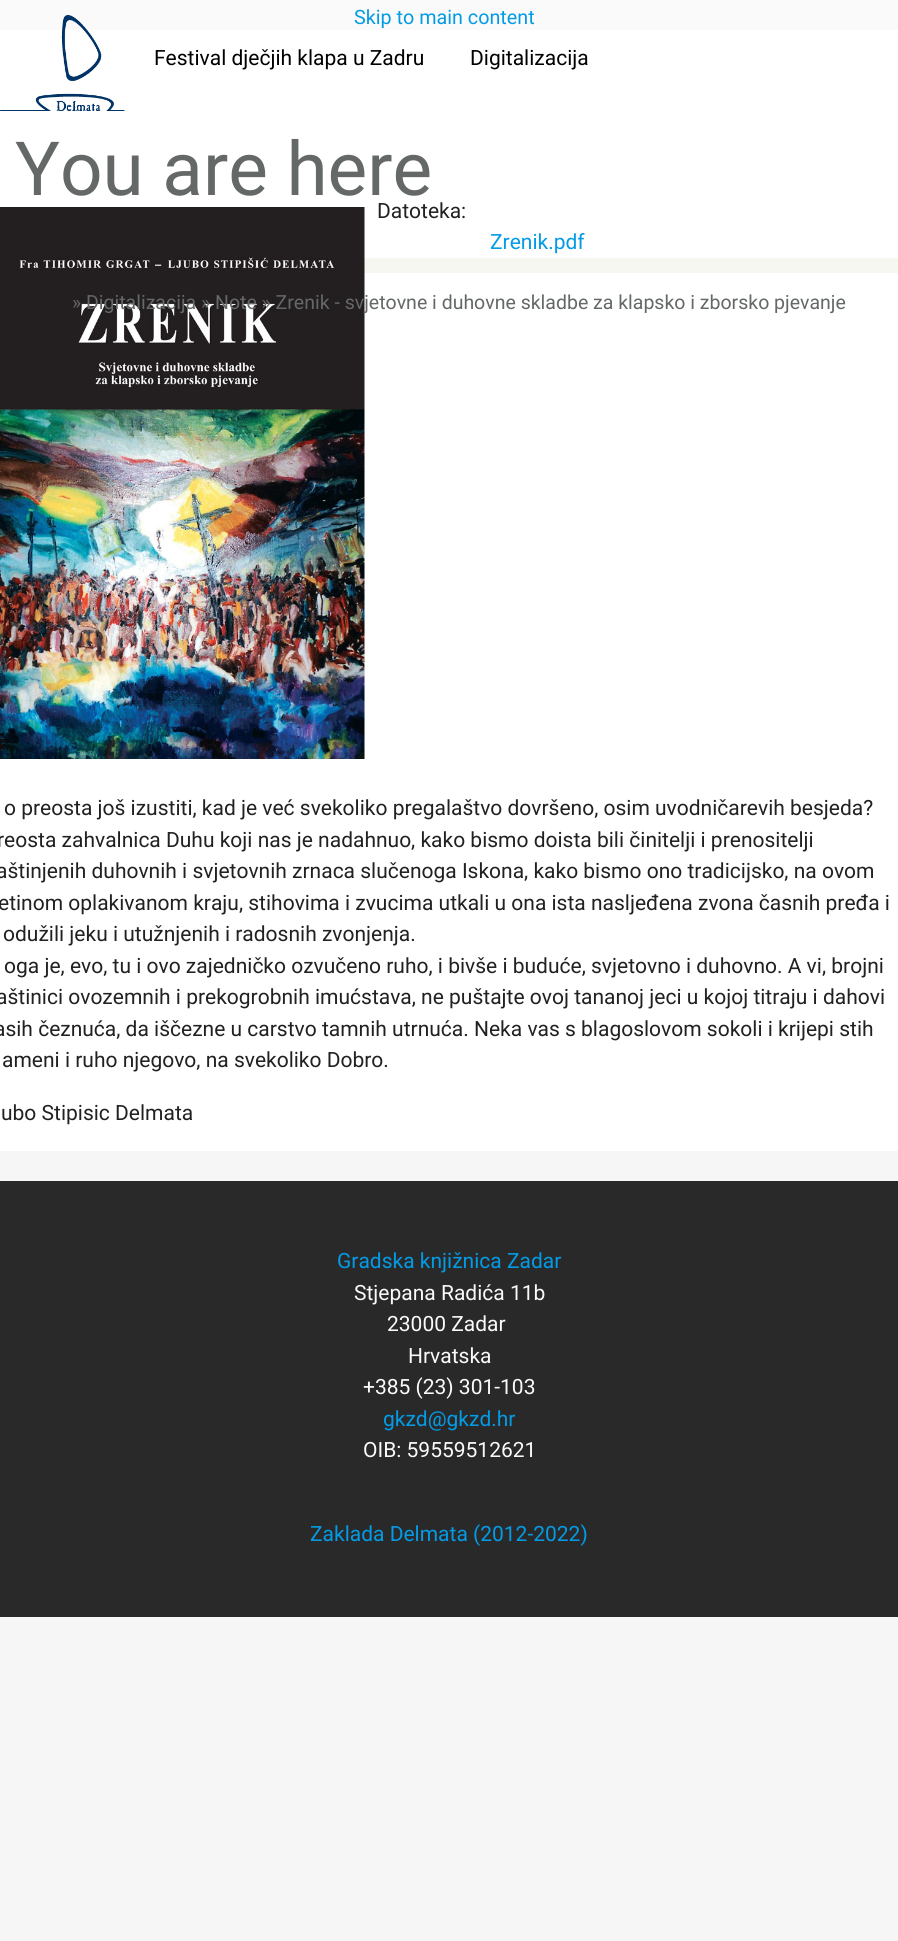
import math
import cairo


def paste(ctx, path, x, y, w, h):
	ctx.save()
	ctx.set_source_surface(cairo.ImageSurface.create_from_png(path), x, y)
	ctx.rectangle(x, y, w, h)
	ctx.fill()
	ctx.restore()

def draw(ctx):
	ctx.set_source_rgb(0.961, 0.961, 0.961)
	ctx.paint()
	ctx.set_source_rgb(0.98, 0.98, 0.98)
	ctx.rectangle(0, 0, 898, 30)
	ctx.fill()
	ctx.select_font_face('Roboto')
	ctx.set_font_size(19.75)
	ctx.set_source_rgb(0.012, 0.608, 0.898)
	ctx.move_to(354, 24)
	ctx.show_text('Skip to main content')
	ctx.set_source_rgb(1, 1, 1)
	ctx.rectangle(0, 30, 898, 1121)
	ctx.fill()
	paste(ctx, 'media/1.png', 0, 15, 125, 96)
	ctx.set_font_size(21)
	ctx.set_source_rgb(0, 0, 0)
	ctx.move_to(154, 65)
	ctx.show_text('Festival dječjih klapa u Zadru')
	ctx.move_to(470, 65)
	ctx.show_text('Digitalizacija')
	ctx.set_font_size(74.75)
	ctx.set_source_rgb(0.392, 0.408, 0.404)
	ctx.move_to(15, 195)
	ctx.show_text('You are here')
	ctx.set_source_rgb(0.965, 0.965, 0.949)
	ctx.rectangle(364, 258, 534, 15)
	ctx.fill()
	paste(ctx, 'media/2.png', 0, 207, 365, 552)
	ctx.set_font_size(19.5)
	ctx.set_source_rgb(0.392, 0.408, 0.404)
	ctx.move_to(72, 309)
	ctx.show_text('» Digitalizacija » Note » Zrenik - svjetovne i duhovne skladbe za klapsko i zborsko pjevanje')
	ctx.set_font_size(21)
	ctx.set_source_rgb(0.129, 0.129, 0.129)
	ctx.move_to(377, 218)
	ctx.show_text('Datoteka:')
	ctx.set_source_rgb(0.012, 0.608, 0.898)
	ctx.move_to(490, 249)
	ctx.show_text('Zrenik.pdf')
	ctx.set_source_rgb(0.129, 0.129, 0.129)
	for x, y, s in [
		(4, 815, 'o preosta još izustiti, kad je već svekoliko pregalaštvo dovršeno, osim uvodničarevih besjeda?'),
		(-3, 847, 'reosta zahvalnica Duhu koji nas je nadahnuo, kako bismo doista bili činitelji i prenositelji'),
		(-4, 878, 'aštinjenih duhovnih i svjetovnih zrnaca slučenoga Iskona, kako bismo ono tradicijsko, na ovom'),
		(-2, 910, 'etinom oplakivanom kraju, stihovima i zvucima utkali u ona ista nasljeđena zvona časnih pređa i'),
		(3, 941, 'odužili jeku i utužnjenih i radosnih zvonjenja.'),
		(4, 973, 'oga je, evo, tu i ovo zajedničko ozvučeno ruho, i bivše i buduće, svjetovno i duhovno. A vi, brojni'),
		(-4, 1004, 'aštinici ovozemnih i prekogrobnih imućstava, ne puštajte ovoj tananoj jeci u kojoj titraju i dahovi'),
		(-6, 1036, 'asih čeznuća, da iščezne u carstvo tamnih utrnuća. Neka vas s blagoslovom sokoli i krijepi stih'),
		(2, 1067, 'ameni i ruho njegovo, na svekoliko Dobro.'),
		(1, 1120, 'ubo Stipisic Delmata'),
	]:
		ctx.move_to(x, y)
		ctx.show_text(s)
	ctx.set_source_rgb(0.161, 0.161, 0.161)
	ctx.rectangle(0, 1181, 898, 436)
	ctx.fill()
	ctx.set_source_rgb(0.012, 0.608, 0.898)
	ctx.move_to(337, 1268)
	ctx.show_text('Gradska knjižnica Zadar')
	ctx.set_source_rgb(0.98, 0.98, 0.98)
	for x, y, s in [
		(354, 1300, 'Stjepana Radića 11b'),
		(387, 1331, '23000 Zadar'),
		(408, 1363, 'Hrvatska'),
		(363, 1394, '+385 (23) 301-103'),
	]:
		ctx.move_to(x, y)
		ctx.show_text(s)
	ctx.set_source_rgb(0.012, 0.608, 0.898)
	ctx.move_to(383, 1426)
	ctx.show_text('gkzd@gkzd.hr')
	ctx.set_source_rgb(0.98, 0.98, 0.98)
	ctx.move_to(363, 1457)
	ctx.show_text('OIB: 59559512621')
	ctx.set_source_rgb(0.012, 0.608, 0.898)
	ctx.move_to(310, 1541)
	ctx.show_text('Zaklada Delmata (2012-2022)')


surface = cairo.ImageSurface(cairo.FORMAT_RGB24, 898, 1941)
ctx = cairo.Context(surface)
options = cairo.FontOptions()
options.set_hint_metrics(cairo.HINT_METRICS_OFF)
options.set_hint_style(cairo.HINT_STYLE_NONE)
ctx.set_font_options(options)
ctx.set_miter_limit(4)
draw(ctx)
surface.write_to_png('image.png')
